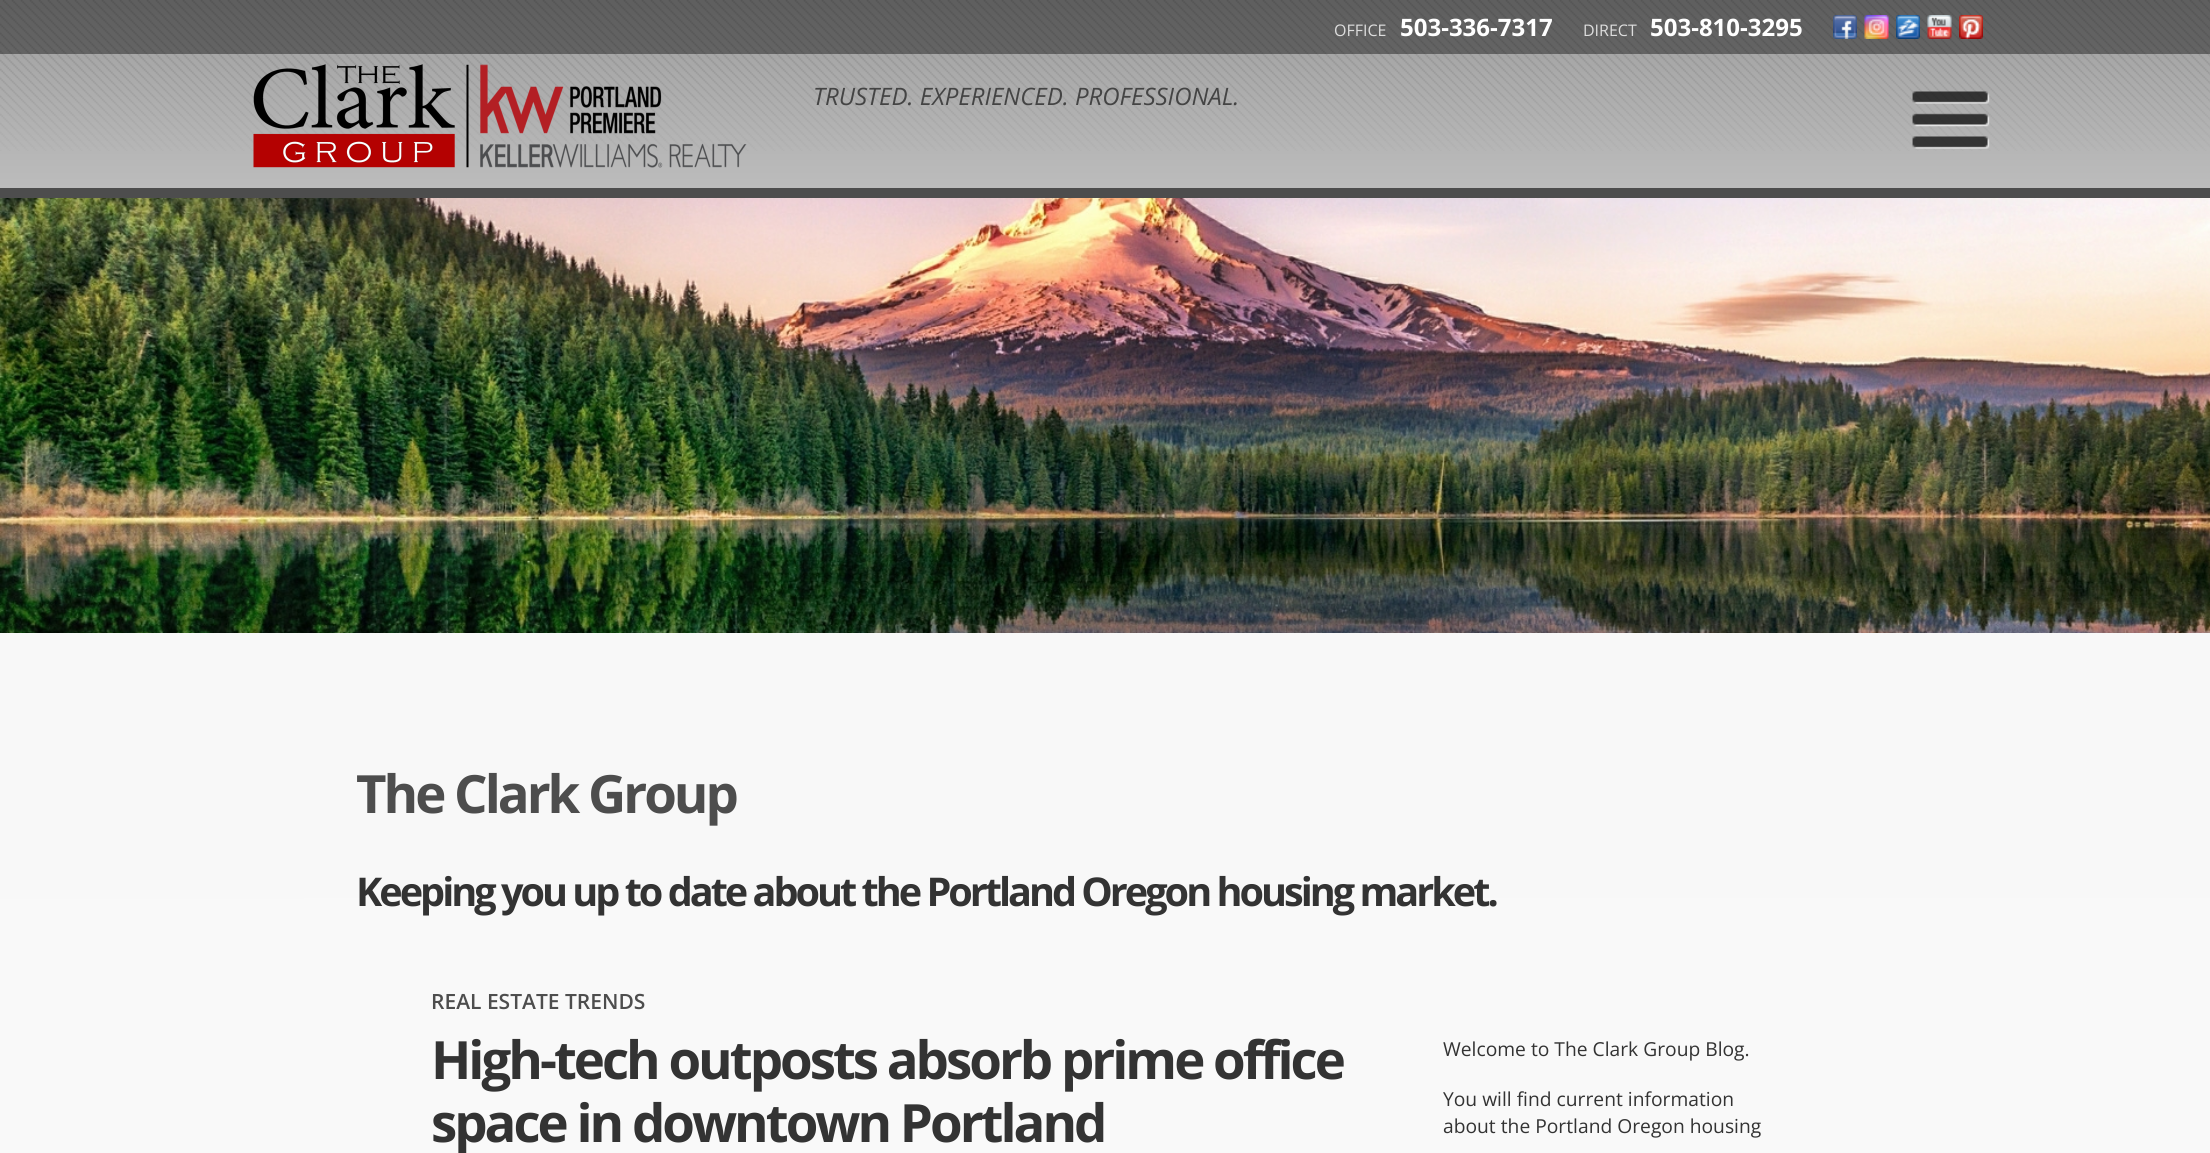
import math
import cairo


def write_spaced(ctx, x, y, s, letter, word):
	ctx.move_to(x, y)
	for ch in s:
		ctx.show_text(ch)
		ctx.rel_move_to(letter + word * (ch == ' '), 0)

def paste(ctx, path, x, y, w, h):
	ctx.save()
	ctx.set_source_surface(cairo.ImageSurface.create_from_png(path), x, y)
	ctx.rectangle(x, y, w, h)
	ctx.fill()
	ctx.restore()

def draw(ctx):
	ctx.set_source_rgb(1, 1, 1)
	ctx.paint()
	gradient = cairo.LinearGradient(1106, 0, 1106, 188)
	gradient.add_color_stop_rgba(0, 0.62, 0.62, 0.62, 1)
	gradient.add_color_stop_rgba(1, 0.737, 0.737, 0.737, 1)
	ctx.set_source(gradient)
	ctx.rectangle(0, 0, 2210, 188)
	ctx.fill()
	ctx.set_source_rgb(0.302, 0.302, 0.302)
	ctx.rectangle(0, 188, 2210, 10)
	ctx.fill()
	paste(ctx, 'media/1.png', 0, 0, 2210, 151)
	ctx.set_source_rgba(0, 0, 0, 0.4)
	ctx.rectangle(0, 0, 2210, 54)
	ctx.fill()
	ctx.select_font_face('Open Sans')
	ctx.set_font_size(16)
	ctx.set_source_rgb(0.867, 0.867, 0.867)
	ctx.move_to(1334, 36)
	ctx.show_text('OFFICE')
	ctx.select_font_face('Open Sans', cairo.FONT_SLANT_NORMAL, cairo.FONT_WEIGHT_BOLD)
	ctx.set_font_size(24)
	ctx.set_source_rgb(1, 1, 1)
	ctx.move_to(1400, 36)
	ctx.show_text('503-336-7317')
	ctx.select_font_face('Open Sans')
	ctx.set_font_size(16)
	ctx.set_source_rgb(0.867, 0.867, 0.867)
	ctx.move_to(1583, 36)
	ctx.show_text('DIRECT')
	ctx.select_font_face('Open Sans', cairo.FONT_SLANT_NORMAL, cairo.FONT_WEIGHT_BOLD)
	ctx.set_font_size(24)
	ctx.set_source_rgb(1, 1, 1)
	ctx.move_to(1650, 36)
	ctx.show_text('503-810-3295')
	paste(ctx, 'media/2.png', 1833, 15, 24, 24)
	paste(ctx, 'media/3.png', 1864, 15, 25, 24)
	paste(ctx, 'media/4.png', 1896, 15, 24, 24)
	paste(ctx, 'media/5.png', 1927, 15, 25, 24)
	paste(ctx, 'media/6.png', 1959, 15, 24, 24)
	paste(ctx, 'media/7.png', 253, 64, 494, 104)
	ctx.select_font_face('Open Sans', cairo.FONT_SLANT_ITALIC)
	ctx.set_source_rgb(0.267, 0.267, 0.267)
	ctx.move_to(813, 105)
	ctx.show_text('TRUSTED. EXPERIENCED. PROFESSIONAL.')
	paste(ctx, 'media/8.png', 1912, 91, 78, 58)
	gradient = cairo.LinearGradient(1105, 198, 1106, 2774)
	gradient.add_color_stop_rgba(0, 0.965, 0.965, 0.965, 1)
	gradient.add_color_stop_rgba(1, 1, 1, 1, 1)
	ctx.set_source(gradient)
	ctx.rectangle(0, 633, 2210, 520)
	ctx.fill()
	paste(ctx, 'media/9.png', 0, 198, 2210, 435)
	ctx.select_font_face('Open Sans', cairo.FONT_SLANT_NORMAL, cairo.FONT_WEIGHT_BOLD)
	ctx.set_font_size(52.75)
	ctx.set_source_rgb(0.302, 0.302, 0.302)
	write_spaced(ctx, 356, 813, 'The Clark Group', -3, 0)
	ctx.set_font_size(39.6)
	ctx.set_source_rgb(0.2, 0.2, 0.2)
	write_spaced(ctx, 356, 906, 'Keeping you up to date about the Portland Oregon housing market.', -3, 0)
	ctx.select_font_face('Open Sans SemiBold')
	ctx.set_font_size(21)
	ctx.set_source_rgb(0.302, 0.302, 0.302)
	ctx.move_to(431, 1009)
	ctx.show_text('REAL ESTATE TRENDS')
	ctx.select_font_face('Open Sans', cairo.FONT_SLANT_NORMAL, cairo.FONT_WEIGHT_BOLD)
	ctx.set_font_size(52.75)
	ctx.set_source_rgb(0.2, 0.2, 0.2)
	write_spaced(ctx, 431, 1079, 'High-tech outposts absorb prime office', -3, 0)
	write_spaced(ctx, 431, 1142, 'space in downtown Portland', -3, 0)
	ctx.select_font_face('Open Sans')
	ctx.set_font_size(19.25)
	for x, y, s in [
		(1443, 1056, 'Welcome to The Clark Group Blog.'),
		(1443, 1106, 'You will find current information'),
		(1443, 1133, 'about the Portland Oregon housing'),
	]:
		ctx.move_to(x, y)
		ctx.show_text(s)


surface = cairo.ImageSurface(cairo.FORMAT_RGB24, 2210, 1153)
ctx = cairo.Context(surface)
options = cairo.FontOptions()
options.set_hint_metrics(cairo.HINT_METRICS_OFF)
options.set_hint_style(cairo.HINT_STYLE_NONE)
ctx.set_font_options(options)
ctx.set_miter_limit(4)
draw(ctx)
surface.write_to_png('image.png')
